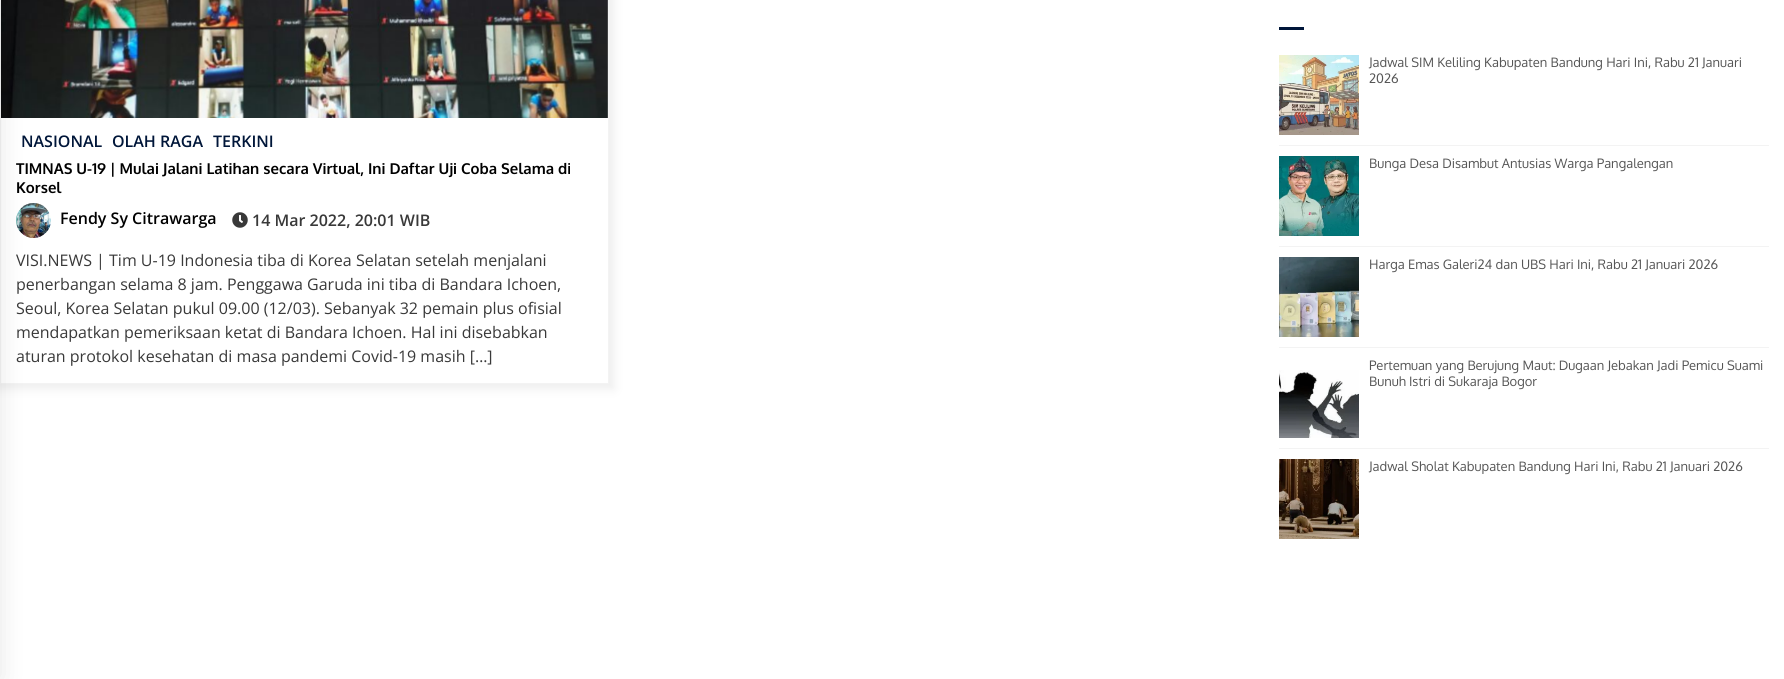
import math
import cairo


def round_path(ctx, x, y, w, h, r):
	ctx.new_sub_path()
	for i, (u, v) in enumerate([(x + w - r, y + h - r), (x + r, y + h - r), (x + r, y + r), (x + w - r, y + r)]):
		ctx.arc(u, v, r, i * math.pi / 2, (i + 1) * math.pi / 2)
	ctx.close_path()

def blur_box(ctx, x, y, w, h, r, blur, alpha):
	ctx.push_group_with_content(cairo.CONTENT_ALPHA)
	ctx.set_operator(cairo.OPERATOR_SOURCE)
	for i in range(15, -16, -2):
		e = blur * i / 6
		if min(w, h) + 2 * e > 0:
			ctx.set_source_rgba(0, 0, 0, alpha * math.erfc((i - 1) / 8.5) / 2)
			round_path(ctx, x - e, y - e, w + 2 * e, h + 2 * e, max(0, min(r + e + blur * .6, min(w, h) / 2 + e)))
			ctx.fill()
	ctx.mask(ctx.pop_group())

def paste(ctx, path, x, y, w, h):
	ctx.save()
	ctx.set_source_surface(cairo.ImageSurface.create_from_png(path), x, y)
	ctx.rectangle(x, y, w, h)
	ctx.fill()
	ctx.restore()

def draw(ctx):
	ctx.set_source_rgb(1, 1, 1)
	ctx.paint()
	ctx.save()
	ctx.set_fill_rule(cairo.FILL_RULE_EVEN_ODD)
	ctx.new_path()
	ctx.move_to(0, 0)
	ctx.line_to(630, 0)
	ctx.line_to(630, 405)
	ctx.line_to(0, 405)
	ctx.close_path()
	ctx.move_to(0, -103)
	ctx.line_to(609, -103)
	ctx.line_to(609, 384)
	ctx.line_to(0, 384)
	ctx.close_path()
	ctx.clip()
	ctx.set_source_rgb(0.933, 0.933, 0.933)
	blur_box(ctx, -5, -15, 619, 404, 0, 5, 1)
	ctx.restore()
	ctx.rectangle(0.5, -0.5, 608, 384)
	ctx.set_source_rgb(0.953, 0.953, 0.953)
	ctx.set_line_width(1)
	ctx.stroke()
	paste(ctx, 'media/6.png', 1, 0, 607, 118)
	paste(ctx, 'media/7.png', 16, 203, 35, 35)
	ctx.set_source_rgb(0, 0, 0)
	blur_box(ctx, -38, 0, 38, 679, 0, 12.5, 0.1)
	ctx.set_source_rgb(0, 0.086, 0.224)
	ctx.rectangle(1279, 27, 25, 3)
	ctx.fill()
	ctx.set_source_rgb(0.953, 0.953, 0.953)
	ctx.rectangle(1279, 145, 490, 1)
	ctx.fill()
	paste(ctx, 'media/1.png', 1279, 55, 80, 80)
	ctx.select_font_face('Oxygen')
	ctx.set_font_size(13)
	ctx.set_source_rgb(0.333, 0.333, 0.333)
	ctx.move_to(1369, 67)
	ctx.show_text('Jadwal SIM Keliling Kabupaten Bandung Hari Ini, Rabu 21 Januari')
	ctx.move_to(1369, 83)
	ctx.show_text('2026')
	ctx.set_source_rgb(0.953, 0.953, 0.953)
	ctx.rectangle(1279, 246, 490, 1)
	ctx.fill()
	paste(ctx, 'media/2.png', 1279, 156, 80, 80)
	ctx.set_source_rgb(0.333, 0.333, 0.333)
	ctx.move_to(1369, 168)
	ctx.show_text('Bunga Desa Disambut Antusias Warga Pangalengan')
	ctx.set_source_rgb(0.953, 0.953, 0.953)
	ctx.rectangle(1279, 347, 490, 1)
	ctx.fill()
	paste(ctx, 'media/3.png', 1279, 257, 80, 80)
	ctx.set_source_rgb(0.333, 0.333, 0.333)
	ctx.move_to(1369, 269)
	ctx.show_text('Harga Emas Galeri24 dan UBS Hari Ini, Rabu 21 Januari 2026')
	ctx.set_source_rgb(0.953, 0.953, 0.953)
	ctx.rectangle(1279, 448, 490, 1)
	ctx.fill()
	paste(ctx, 'media/4.png', 1279, 370, 80, 68)
	ctx.set_source_rgb(0.333, 0.333, 0.333)
	ctx.move_to(1369, 370)
	ctx.show_text('Pertemuan yang Berujung Maut: Dugaan Jebakan Jadi Pemicu Suami')
	ctx.move_to(1369, 386)
	ctx.show_text('Bunuh Istri di Sukaraja Bogor')
	paste(ctx, 'media/5.png', 1279, 459, 80, 80)
	ctx.move_to(1369, 471)
	ctx.show_text('Jadwal Sholat Kabupaten Bandung Hari Ini, Rabu 21 Januari 2026')
	ctx.select_font_face('Open Sans SemiBold')
	ctx.set_font_size(16)
	ctx.set_source_rgb(0, 0.086, 0.224)
	for x, y, s in [
		(21, 147, 'NASIONAL'),
		(112, 147, 'OLAH RAGA'),
		(213, 147, 'TERKINI'),
	]:
		ctx.move_to(x, y)
		ctx.show_text(s)
	ctx.select_font_face('Oxygen', cairo.FONT_SLANT_NORMAL, cairo.FONT_WEIGHT_BOLD)
	ctx.set_font_size(15)
	ctx.set_source_rgb(0, 0, 0)
	ctx.move_to(16, 174)
	ctx.show_text('TIMNAS U-19 | Mulai Jalani Latihan secara Virtual, Ini Daftar Uji Coba Selama di')
	ctx.move_to(16, 193)
	ctx.show_text('Korsel')
	ctx.select_font_face('Open Sans SemiBold')
	ctx.set_font_size(16)
	ctx.move_to(60, 224)
	ctx.show_text('Fendy Sy Citrawarga')
	paste(ctx, 'media/8.png', 232, 212, 16, 16)
	ctx.set_source_rgb(0.224, 0.224, 0.224)
	ctx.move_to(252, 226)
	ctx.show_text('14 Mar 2022, 20:01 WIB')
	ctx.select_font_face('Open Sans')
	for x, y, s in [
		(16, 266, 'VISI.NEWS | Tim U-19 Indonesia tiba di Korea Selatan setelah menjalani'),
		(16, 290, 'penerbangan selama 8 jam. Penggawa Garuda ini tiba di Bandara Ichoen,'),
		(16, 314, 'Seoul, Korea Selatan pukul 09.00 (12/03). Sebanyak 32 pemain plus ofisial'),
		(16, 338, 'mendapatkan pemeriksaan ketat di Bandara Ichoen. Hal ini disebabkan'),
		(16, 362, 'aturan protokol kesehatan di masa pandemi Covid-19 masih […]'),
	]:
		ctx.move_to(x, y)
		ctx.show_text(s)


surface = cairo.ImageSurface(cairo.FORMAT_RGB24, 1784, 679)
ctx = cairo.Context(surface)
options = cairo.FontOptions()
options.set_hint_metrics(cairo.HINT_METRICS_OFF)
options.set_hint_style(cairo.HINT_STYLE_NONE)
ctx.set_font_options(options)
ctx.set_miter_limit(4)
draw(ctx)
surface.write_to_png('image.png')
